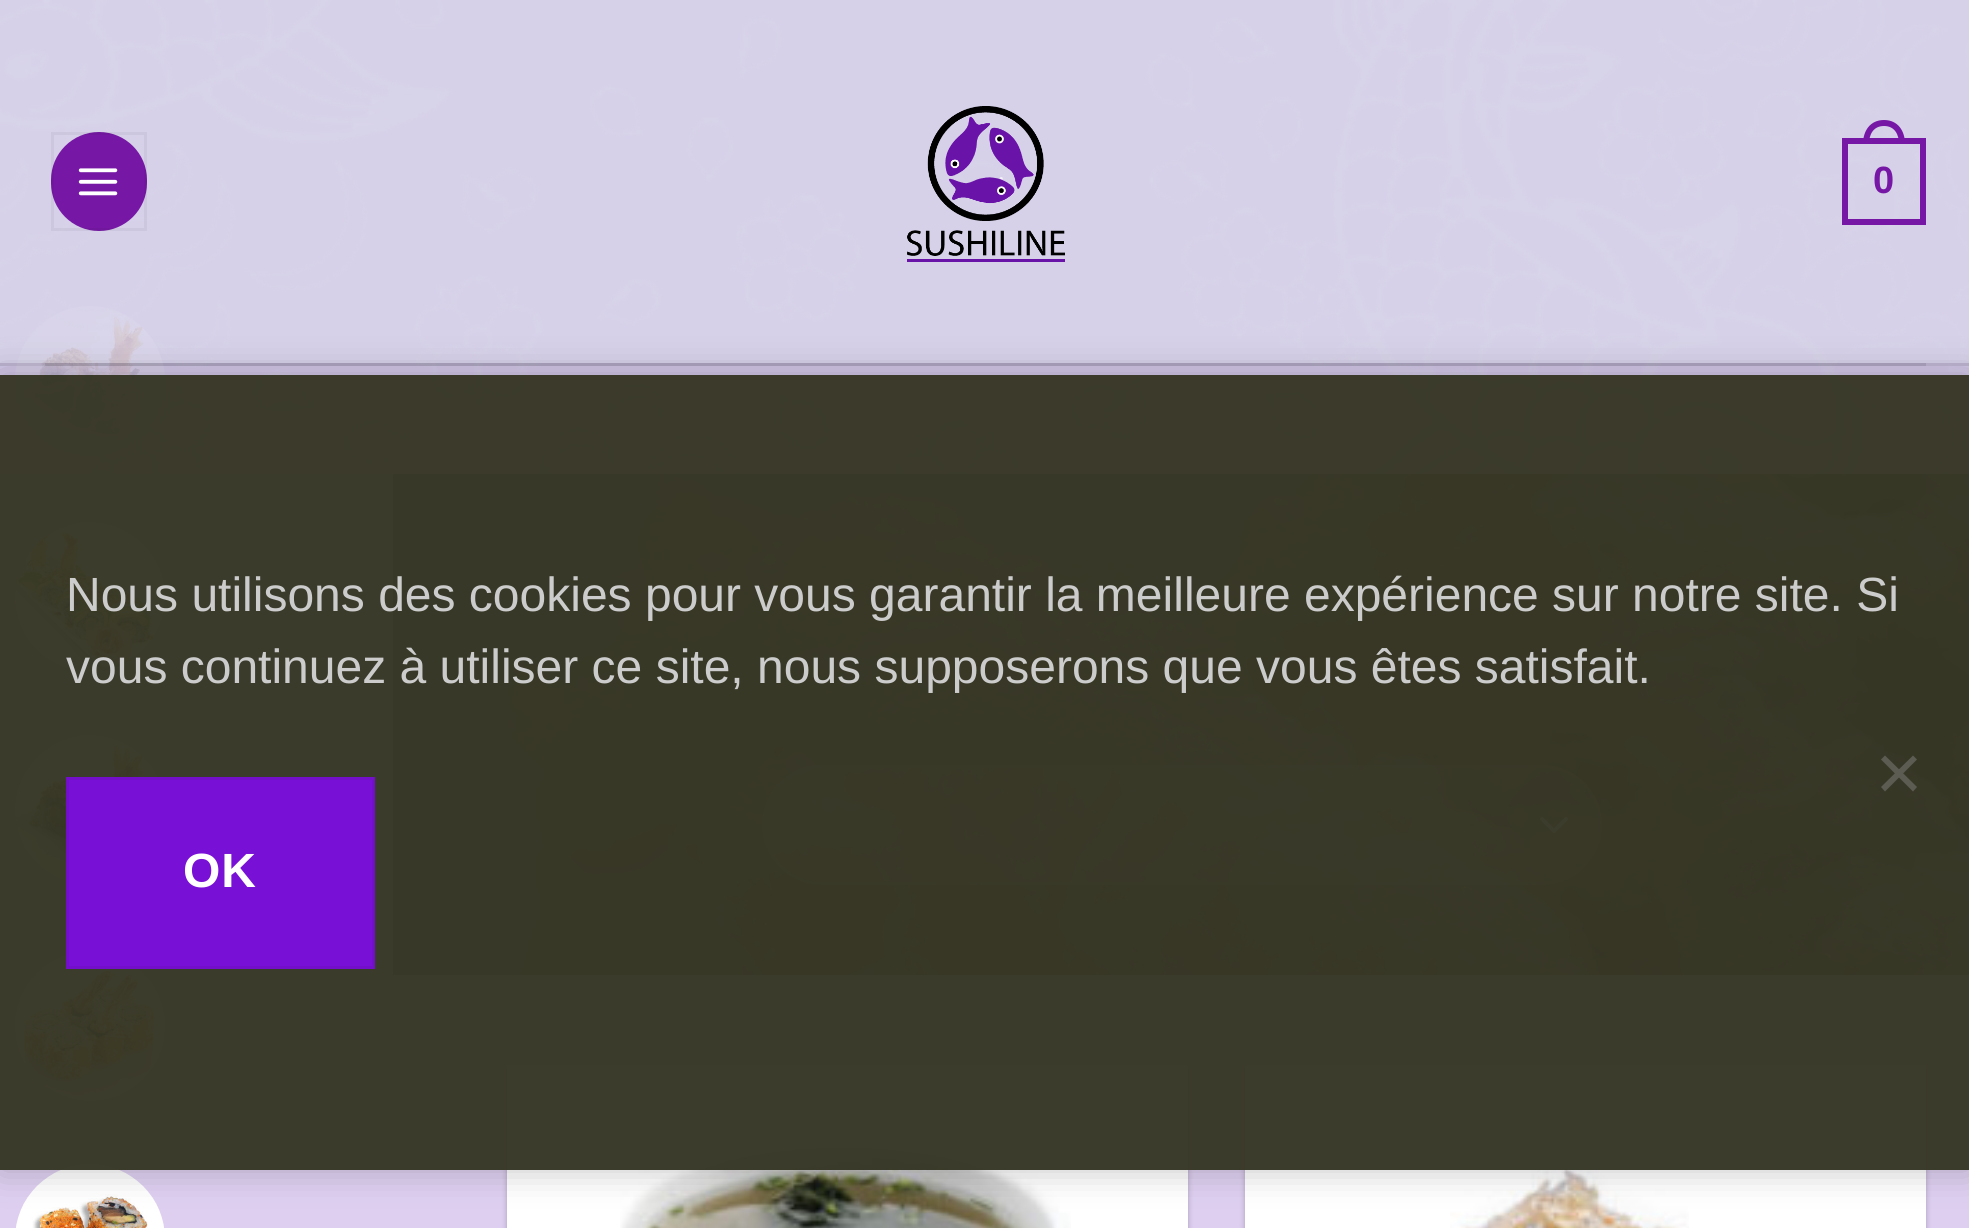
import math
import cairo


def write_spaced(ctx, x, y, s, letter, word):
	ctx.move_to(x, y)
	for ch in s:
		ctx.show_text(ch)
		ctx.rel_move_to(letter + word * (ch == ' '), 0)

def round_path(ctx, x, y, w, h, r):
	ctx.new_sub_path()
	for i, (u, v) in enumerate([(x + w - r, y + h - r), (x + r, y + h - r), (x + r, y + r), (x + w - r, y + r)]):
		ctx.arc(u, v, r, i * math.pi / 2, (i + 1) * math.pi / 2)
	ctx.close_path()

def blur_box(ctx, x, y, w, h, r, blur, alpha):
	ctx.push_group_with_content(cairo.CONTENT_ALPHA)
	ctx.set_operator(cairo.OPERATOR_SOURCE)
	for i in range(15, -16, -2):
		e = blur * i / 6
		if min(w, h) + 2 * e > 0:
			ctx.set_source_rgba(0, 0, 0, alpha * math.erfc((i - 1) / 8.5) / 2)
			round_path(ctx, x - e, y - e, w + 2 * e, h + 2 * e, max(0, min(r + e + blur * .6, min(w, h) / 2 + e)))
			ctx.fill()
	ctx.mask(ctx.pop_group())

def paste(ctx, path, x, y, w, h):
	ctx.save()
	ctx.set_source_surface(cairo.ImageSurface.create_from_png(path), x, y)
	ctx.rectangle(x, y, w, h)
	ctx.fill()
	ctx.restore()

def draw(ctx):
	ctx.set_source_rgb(0.871, 0.812, 0.945)
	ctx.paint()
	ctx.set_source_rgb(0.839, 0.816, 0.914)
	ctx.rectangle(0, 0, 1969, 474)
	ctx.fill()
	paste(ctx, 'media/4.png', 15, 306, 150, 150)
	paste(ctx, 'media/1.png', 0, 0, 1969, 474)
	ctx.set_source_rgb(0.463, 0.094, 0.647)
	round_path(ctx, 51, 132, 96, 99, 48)
	ctx.fill()
	ctx.rectangle(52.5, 133.5, 93, 96)
	ctx.set_source_rgba(0, 0, 0, 0.05)
	ctx.set_line_width(3)
	ctx.stroke()
	paste(ctx, 'media/2.png', 78, 168, 40, 28)
	paste(ctx, 'media/3.png', 907, 106, 158, 156)
	ctx.rectangle(1845, 141, 78, 81)
	ctx.set_source_rgb(0.463, 0.094, 0.647)
	ctx.set_line_width(6)
	ctx.stroke()
	ctx.set_fill_rule(cairo.FILL_RULE_EVEN_ODD)
	ctx.new_path()
	ctx.move_to(1884, 120)
	ctx.curve_to(1898, 120, 1905, 131, 1905, 144)
	ctx.line_to(1863, 144)
	ctx.curve_to(1863, 131, 1870, 120, 1884, 120)
	ctx.close_path()
	ctx.move_to(1884, 126)
	ctx.curve_to(1895, 126, 1899, 135, 1899, 144)
	ctx.line_to(1869, 144)
	ctx.curve_to(1869, 135, 1873, 126, 1884, 126)
	ctx.close_path()
	ctx.fill()
	ctx.select_font_face('Liberation Sans', cairo.FONT_SLANT_NORMAL, cairo.FONT_WEIGHT_BOLD)
	ctx.set_font_size(38)
	ctx.move_to(1873, 193)
	ctx.show_text('0')
	ctx.set_source_rgba(0.51, 0.141, 0.89, 0.05)
	ctx.rectangle(0, 363, 1969, 111)
	ctx.fill()
	ctx.set_source_rgba(0, 0, 0, 0.1)
	ctx.rectangle(0, 363, 1969, 3)
	ctx.fill()
	ctx.set_source_rgba(0.039, 0.039, 0.039, 0.1)
	ctx.rectangle(45, 363, 1881, 3)
	ctx.fill()
	paste(ctx, 'media/5.png', 15, 522, 150, 150)
	paste(ctx, 'media/6.png', 15, 735, 143, 146)
	paste(ctx, 'media/7.png', 15, 954, 150, 147)
	paste(ctx, 'media/8.png', 16, 1164, 148, 64)
	ctx.set_source_rgb(0, 0, 0)
	blur_box(ctx, 507, 1068, 681, 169, 0, 3, 0.24)
	ctx.set_source_rgb(1, 1, 1)
	ctx.rectangle(507, 1065, 681, 163)
	ctx.fill()
	paste(ctx, 'media/9.png', 620, 1143, 451, 85)
	ctx.set_source_rgb(0, 0, 0)
	blur_box(ctx, 1245, 1068, 681, 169, 0, 3, 0.24)
	ctx.set_source_rgb(1, 1, 1)
	ctx.rectangle(1245, 1065, 681, 163)
	ctx.fill()
	paste(ctx, 'media/10.png', 1450, 1168, 239, 60)
	paste(ctx, 'media/11.png', 393, 474, 1576, 501)
	ctx.set_source_rgba(1, 1, 1, 0.2)
	round_path(ctx, 762, 765, 840, 120, 60)
	ctx.fill()
	ctx.new_path()
	ctx.move_to(1542, 819)
	ctx.line_to(1554, 831)
	ctx.line_to(1566, 819)
	ctx.set_source_rgb(1, 1, 1)
	ctx.set_line_width(4)
	ctx.set_line_cap(cairo.LINE_CAP_ROUND)
	ctx.set_line_join(cairo.LINE_JOIN_ROUND)
	ctx.stroke()
	round_path(ctx, 763.5, 766.5, 837, 117, 58.5)
	ctx.set_source_rgba(1, 1, 1, 0.09)
	ctx.set_line_width(3)
	ctx.set_line_cap(cairo.LINE_CAP_BUTT)
	ctx.set_line_join(cairo.LINE_JOIN_MITER)
	ctx.stroke()
	ctx.save()
	ctx.new_path()
	ctx.move_to(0, 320)
	ctx.line_to(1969, 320)
	ctx.line_to(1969, 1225)
	ctx.line_to(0, 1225)
	ctx.close_path()
	ctx.move_to(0, 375)
	ctx.line_to(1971, 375)
	ctx.line_to(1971, 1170)
	ctx.line_to(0, 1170)
	ctx.close_path()
	ctx.clip()
	ctx.set_source_rgb(0.227, 0.227, 0.227)
	blur_box(ctx, 0, 375, 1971, 795, 0, 18, 0.3)
	ctx.restore()
	ctx.set_source_rgba(0.216, 0.216, 0.149, 0.97)
	ctx.rectangle(0, 375, 1969, 795)
	ctx.fill()
	ctx.select_font_face('Liberation Sans')
	ctx.set_font_size(48)
	ctx.set_source_rgb(0.8, 0.8, 0.8)
	ctx.move_to(66, 611)
	ctx.show_text('Nous utilisons des cookies pour vous garantir la meilleure expérience sur notre site. Si')
	ctx.move_to(66, 683)
	ctx.show_text('vous continuez à utiliser ce site, nous supposerons que vous êtes satisfait.')
	ctx.set_source_rgb(0.361, 0.361, 0.325)
	ctx.set_fill_rule(cairo.FILL_RULE_WINDING)
	ctx.new_path()
	ctx.move_to(1913, 755.5)
	ctx.line_to(1917, 759.5)
	ctx.line_to(1885, 791.5)
	ctx.line_to(1881, 787)
	ctx.close_path()
	ctx.fill()
	ctx.new_path()
	ctx.move_to(1881, 759.5)
	ctx.line_to(1885, 755.5)
	ctx.line_to(1917, 787)
	ctx.line_to(1913, 791.5)
	ctx.close_path()
	ctx.fill()
	ctx.set_source_rgb(0.475, 0.063, 0.835)
	ctx.rectangle(67.5, 778.5, 306, 189)
	ctx.fill_preserve()
	ctx.set_source_rgb(0.451, 0.059, 0.792)
	ctx.stroke()
	ctx.select_font_face('Liberation Sans', cairo.FONT_SLANT_NORMAL, cairo.FONT_WEIGHT_BOLD)
	ctx.set_source_rgb(1, 1, 1)
	write_spaced(ctx, 183, 887, 'OK', 1, 0)


surface = cairo.ImageSurface(cairo.FORMAT_RGB24, 1969, 1228)
ctx = cairo.Context(surface)
options = cairo.FontOptions()
options.set_hint_metrics(cairo.HINT_METRICS_OFF)
options.set_hint_style(cairo.HINT_STYLE_NONE)
ctx.set_font_options(options)
ctx.set_miter_limit(4)
draw(ctx)
surface.write_to_png('image.png')
